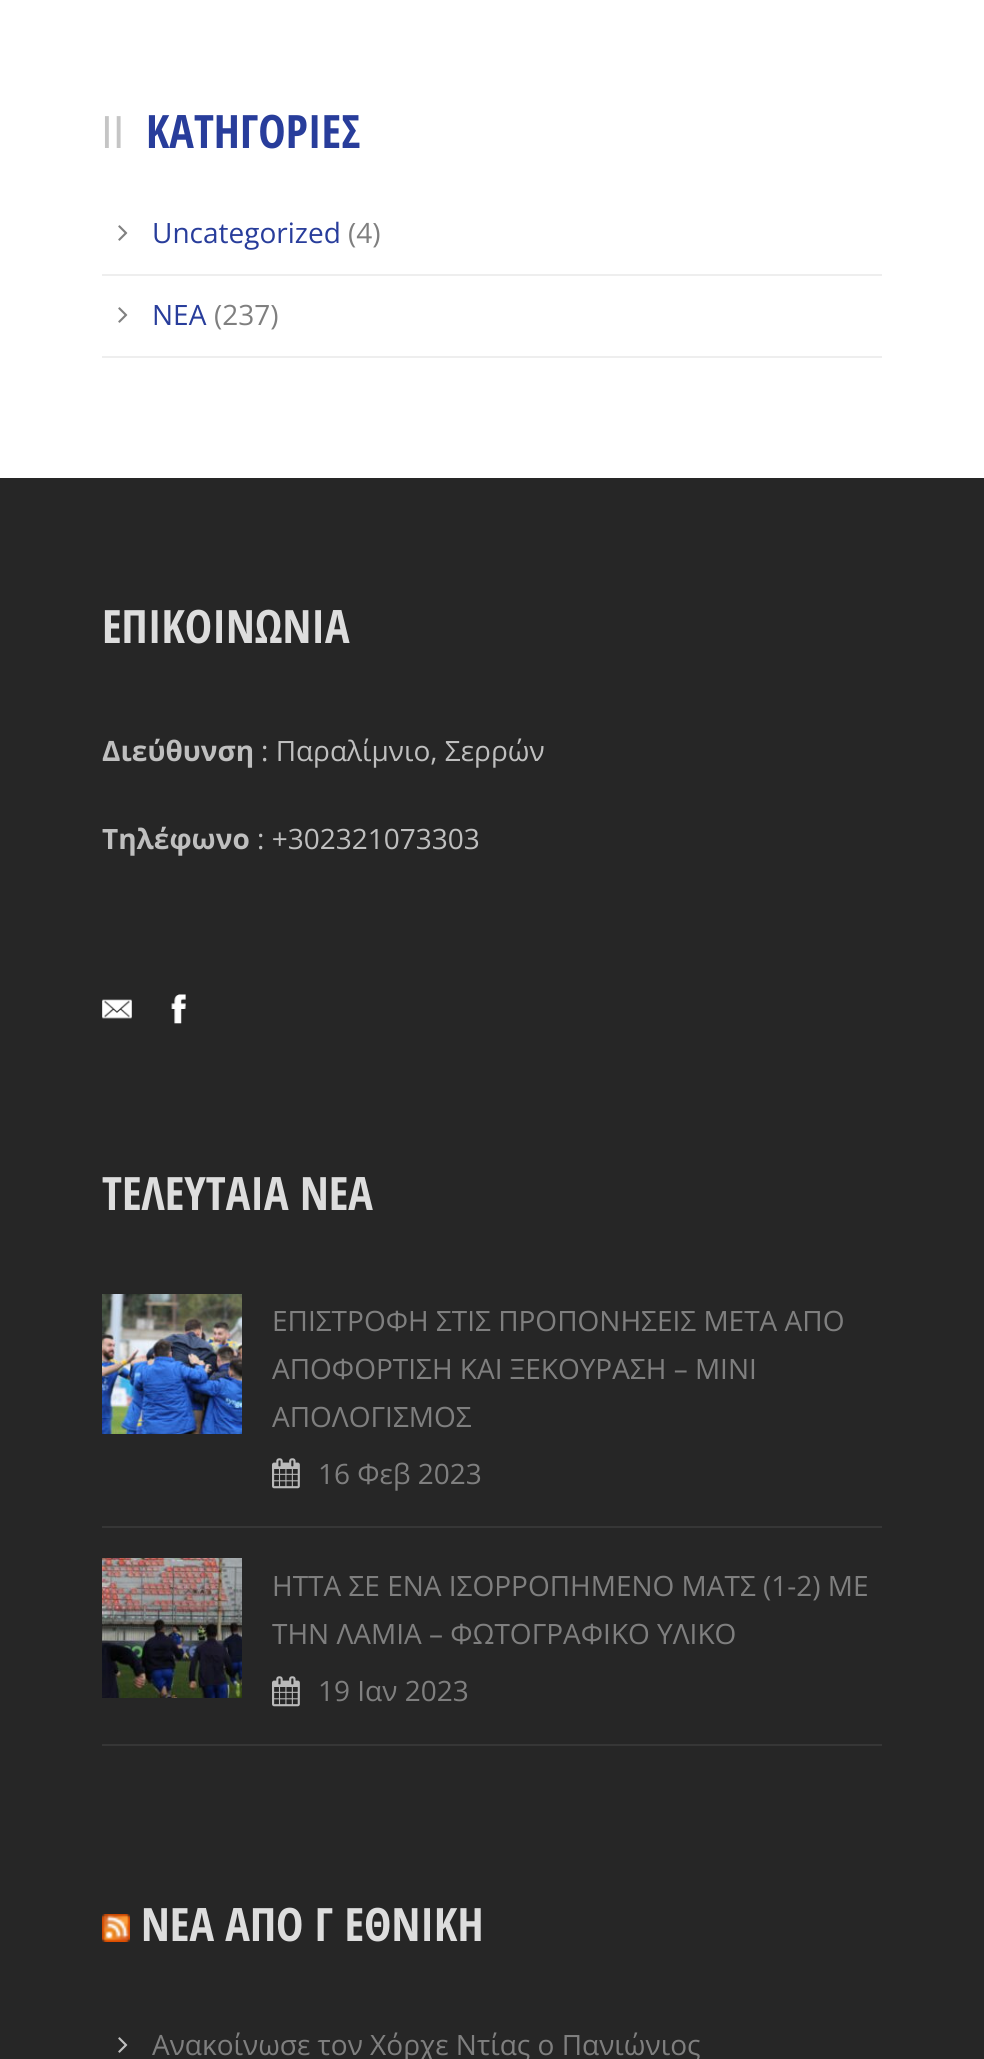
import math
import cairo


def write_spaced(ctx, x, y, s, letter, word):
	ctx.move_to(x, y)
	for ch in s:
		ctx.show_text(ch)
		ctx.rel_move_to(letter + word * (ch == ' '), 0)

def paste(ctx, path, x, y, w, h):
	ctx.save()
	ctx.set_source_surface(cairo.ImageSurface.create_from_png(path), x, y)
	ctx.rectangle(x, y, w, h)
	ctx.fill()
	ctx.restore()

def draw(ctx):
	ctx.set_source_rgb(1, 1, 1)
	ctx.paint()
	ctx.select_font_face('Liberation Sans')
	ctx.set_font_size(44)
	ctx.set_source_rgb(0.773, 0.773, 0.773)
	write_spaced(ctx, 102, 148, 'll', 2, 0)
	ctx.select_font_face('Open Sans Condensed', cairo.FONT_SLANT_NORMAL, cairo.FONT_WEIGHT_BOLD)
	ctx.set_font_size(46)
	ctx.set_source_rgb(0.157, 0.239, 0.608)
	ctx.move_to(146, 148)
	ctx.show_text('ΚΑΤΗΓΟΡΙΕΣ')
	ctx.set_source_rgb(0.933, 0.933, 0.933)
	ctx.rectangle(102, 274, 780, 2)
	ctx.fill()
	paste(ctx, 'media/1.png', 118, 225, 10, 16)
	ctx.select_font_face('Open Sans')
	ctx.set_font_size(28)
	ctx.set_source_rgb(0.157, 0.239, 0.608)
	ctx.move_to(152, 243)
	ctx.show_text('Uncategorized')
	ctx.set_source_rgb(0.498, 0.498, 0.498)
	ctx.move_to(348, 243)
	ctx.show_text('(4)')
	ctx.set_source_rgb(0.933, 0.933, 0.933)
	ctx.rectangle(102, 356, 780, 2)
	ctx.fill()
	paste(ctx, 'media/1.png', 118, 307, 10, 16)
	ctx.set_source_rgb(0.157, 0.239, 0.608)
	ctx.move_to(152, 325)
	ctx.show_text('ΝΕΑ')
	ctx.set_source_rgb(0.498, 0.498, 0.498)
	ctx.move_to(214, 325)
	ctx.show_text('(237)')
	ctx.set_source_rgb(0.149, 0.149, 0.149)
	ctx.rectangle(0, 478, 984, 1581)
	ctx.fill()
	ctx.select_font_face('Open Sans Condensed', cairo.FONT_SLANT_NORMAL, cairo.FONT_WEIGHT_BOLD)
	ctx.set_font_size(46)
	ctx.set_source_rgb(0.867, 0.867, 0.867)
	ctx.move_to(102, 643)
	ctx.show_text('ΕΠΙΚΟΙΝΩΝΙΑ')
	ctx.select_font_face('Open Sans', cairo.FONT_SLANT_NORMAL, cairo.FONT_WEIGHT_BOLD)
	ctx.set_font_size(28)
	ctx.set_source_rgb(0.749, 0.749, 0.749)
	ctx.move_to(102, 761)
	ctx.show_text('Διεύθυνση')
	ctx.select_font_face('Open Sans')
	ctx.move_to(261, 761)
	ctx.show_text(': Παραλίμνιο, Σερρών')
	ctx.select_font_face('Open Sans', cairo.FONT_SLANT_NORMAL, cairo.FONT_WEIGHT_BOLD)
	ctx.move_to(102, 849)
	ctx.show_text('Τηλέφωνο')
	ctx.select_font_face('Open Sans')
	ctx.move_to(257, 849)
	ctx.show_text(': +302321073303')
	paste(ctx, 'media/2.png', 102, 999, 30, 20)
	paste(ctx, 'media/3.png', 171, 994, 15, 30)
	ctx.select_font_face('Open Sans Condensed', cairo.FONT_SLANT_NORMAL, cairo.FONT_WEIGHT_BOLD)
	ctx.set_font_size(46)
	ctx.set_source_rgb(0.867, 0.867, 0.867)
	ctx.move_to(102, 1210)
	ctx.show_text('ΤΕΛΕΥΤΑΙΑ ΝΕΑ')
	ctx.set_source_rgb(0.212, 0.212, 0.212)
	ctx.rectangle(102, 1526, 780, 2)
	ctx.fill()
	paste(ctx, 'media/4.png', 102, 1294, 140, 140)
	ctx.select_font_face('Open Sans')
	ctx.set_font_size(28)
	ctx.set_source_rgb(0.498, 0.498, 0.498)
	for x, y, s in [
		(272, 1331, 'ΕΠΙΣΤΡΟΦΗ ΣΤΙΣ ΠΡΟΠΟΝΗΣΕΙΣ ΜΕΤΑ ΑΠΟ'),
		(272, 1379, 'ΑΠΟΦΟΡΤΙΣΗ ΚΑΙ ΞΕΚΟΥΡΑΣΗ – ΜΙΝΙ'),
		(272, 1427, 'ΑΠΟΛΟΓΙΣΜΟΣ'),
	]:
		ctx.move_to(x, y)
		ctx.show_text(s)
	paste(ctx, 'media/5.png', 272, 1458, 28, 31)
	ctx.move_to(318, 1484)
	ctx.show_text('16 Φεβ 2023')
	ctx.set_source_rgb(0.212, 0.212, 0.212)
	ctx.rectangle(102, 1744, 780, 2)
	ctx.fill()
	paste(ctx, 'media/6.png', 102, 1558, 140, 140)
	ctx.set_source_rgb(0.498, 0.498, 0.498)
	ctx.move_to(272, 1596)
	ctx.show_text('ΗΤΤΑ ΣΕ ENA ΙΣΟΡΡΟΠΗΜΕΝΟ ΜΑΤΣ (1-2) ΜΕ')
	ctx.move_to(272, 1644)
	ctx.show_text('ΤΗΝ ΛΑΜΙΑ – ΦΩΤΟΓΡΑΦΙΚΟ ΥΛΙΚΟ')
	paste(ctx, 'media/5.png', 272, 1676, 28, 31)
	ctx.move_to(318, 1701)
	ctx.show_text('19 Ιαν 2023')
	paste(ctx, 'media/7.png', 102, 1914, 28, 28)
	ctx.select_font_face('Open Sans Condensed', cairo.FONT_SLANT_NORMAL, cairo.FONT_WEIGHT_BOLD)
	ctx.set_font_size(46)
	ctx.set_source_rgb(0.867, 0.867, 0.867)
	ctx.move_to(141, 1941)
	ctx.show_text('ΝΕΑ ΑΠΟ Γ ΕΘΝΙΚΗ')
	paste(ctx, 'media/8.png', 118, 2037, 10, 16)
	ctx.select_font_face('Open Sans')
	ctx.set_font_size(28)
	ctx.set_source_rgb(0.498, 0.498, 0.498)
	ctx.move_to(152, 2055)
	ctx.show_text('Ανακοίνωσε τον Χόρχε Ντίας ο Πανιώνιος')


surface = cairo.ImageSurface(cairo.FORMAT_RGB24, 984, 2059)
ctx = cairo.Context(surface)
options = cairo.FontOptions()
options.set_hint_metrics(cairo.HINT_METRICS_OFF)
options.set_hint_style(cairo.HINT_STYLE_NONE)
ctx.set_font_options(options)
ctx.set_miter_limit(4)
draw(ctx)
surface.write_to_png('image.png')
